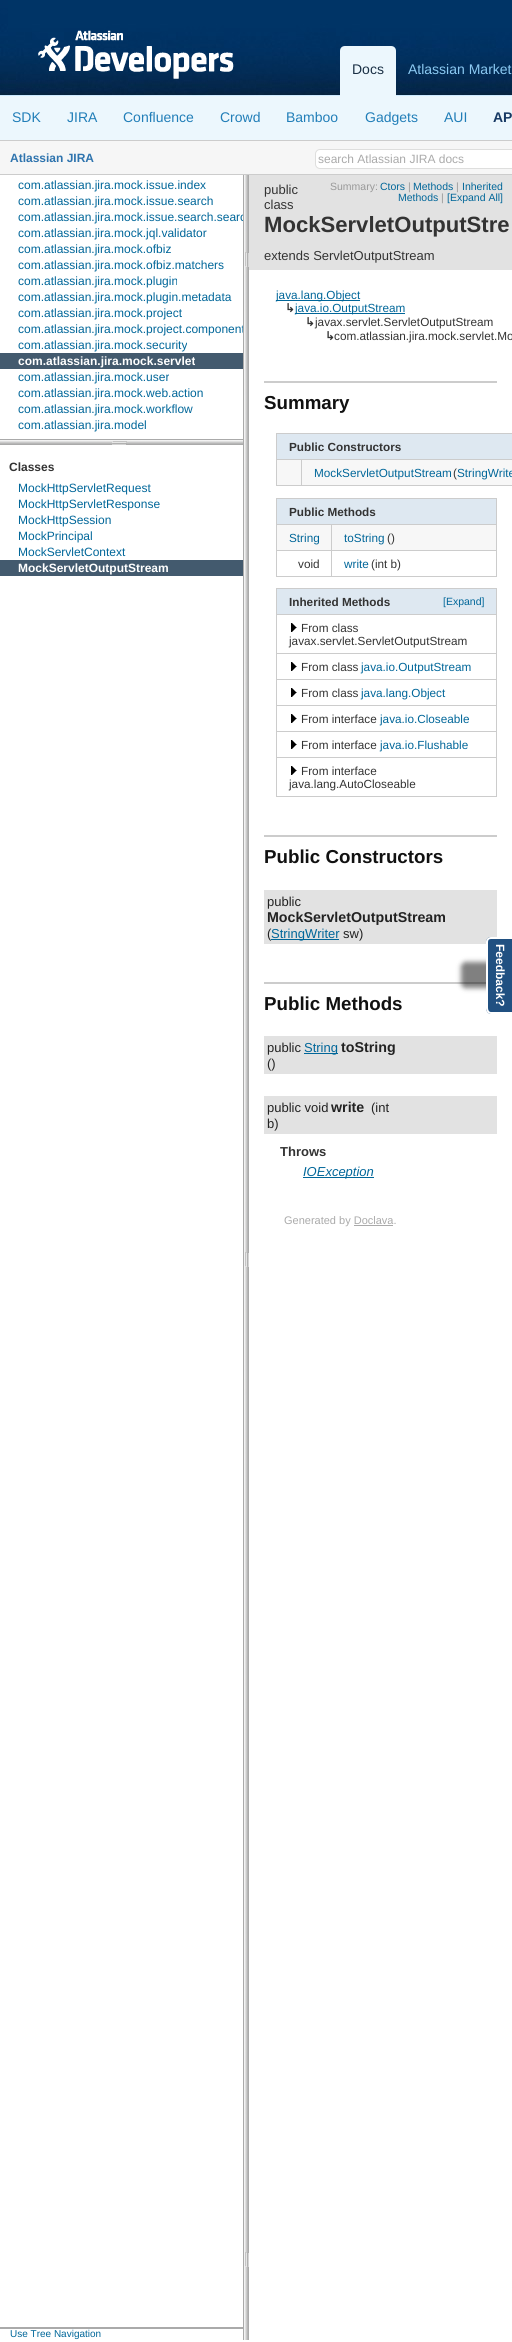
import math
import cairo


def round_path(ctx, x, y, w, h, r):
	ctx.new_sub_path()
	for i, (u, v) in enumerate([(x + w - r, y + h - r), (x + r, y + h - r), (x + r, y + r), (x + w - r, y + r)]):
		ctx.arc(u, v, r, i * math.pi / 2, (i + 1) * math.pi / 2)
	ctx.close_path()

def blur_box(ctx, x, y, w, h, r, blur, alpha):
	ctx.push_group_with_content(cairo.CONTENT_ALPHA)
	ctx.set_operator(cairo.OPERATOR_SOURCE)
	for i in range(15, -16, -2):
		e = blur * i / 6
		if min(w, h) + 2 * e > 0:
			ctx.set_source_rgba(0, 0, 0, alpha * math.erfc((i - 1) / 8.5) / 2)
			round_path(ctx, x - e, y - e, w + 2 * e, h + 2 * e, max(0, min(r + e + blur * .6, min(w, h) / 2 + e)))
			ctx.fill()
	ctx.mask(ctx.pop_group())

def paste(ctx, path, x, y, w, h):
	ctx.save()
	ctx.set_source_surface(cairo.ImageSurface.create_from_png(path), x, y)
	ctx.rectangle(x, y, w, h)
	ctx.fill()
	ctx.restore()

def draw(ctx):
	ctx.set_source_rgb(1, 1, 1)
	ctx.paint()
	ctx.set_source_rgb(0.925, 0.965, 0.992)
	ctx.rectangle(0, 96, 512, 44)
	ctx.fill()
	paste(ctx, 'media/1.png', 0, 0, 512, 96)
	ctx.set_source_rgb(0.8, 0.8, 0.8)
	ctx.rectangle(0, 174, 512, 1)
	ctx.fill()
	paste(ctx, 'media/2.png', 38, 30, 196, 49)
	ctx.set_source_rgb(0.925, 0.965, 0.992)
	ctx.new_path()
	ctx.move_to(345, 46)
	ctx.line_to(391, 46)
	ctx.curve_to(394, 46, 396, 48, 396, 51)
	ctx.line_to(396, 96)
	ctx.line_to(340, 96)
	ctx.line_to(340, 51)
	ctx.curve_to(340, 48, 342, 46, 345, 46)
	ctx.close_path()
	ctx.fill()
	ctx.select_font_face('Liberation Sans')
	ctx.set_font_size(14)
	ctx.set_source_rgb(0.102, 0.188, 0.271)
	ctx.move_to(352, 74)
	ctx.show_text('Docs')
	ctx.set_source_rgb(0.545, 0.788, 0.949)
	ctx.move_to(408, 74)
	ctx.show_text('Atlassian Market')
	ctx.set_source_rgb(0.129, 0.494, 0.722)
	for x, y, s in [
		(12, 122, 'SDK'),
		(67, 122, 'JIRA'),
		(123, 122, 'Confluence'),
		(220, 122, 'Crowd'),
		(286, 122, 'Bamboo'),
		(365, 122, 'Gadgets'),
		(444, 122, 'AUI'),
	]:
		ctx.move_to(x, y)
		ctx.show_text(s)
	ctx.select_font_face('Liberation Sans', cairo.FONT_SLANT_NORMAL, cairo.FONT_WEIGHT_BOLD)
	ctx.set_source_rgb(0.09, 0.224, 0.392)
	ctx.move_to(493, 122)
	ctx.show_text('AP')
	ctx.set_source_rgb(0.961, 0.961, 0.961)
	ctx.rectangle(0, 141, 512, 33)
	ctx.fill()
	ctx.set_source_rgb(0.8, 0.8, 0.8)
	ctx.rectangle(0, 140, 512, 1)
	ctx.fill()
	ctx.set_font_size(12)
	ctx.set_source_rgb(0.184, 0.455, 0.682)
	ctx.move_to(10, 162)
	ctx.show_text('Atlassian JIRA')
	ctx.set_source_rgb(1, 1, 1)
	round_path(ctx, 315.5, 149.5, 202, 19, 4.5)
	ctx.fill_preserve()
	ctx.set_source_rgb(0.871, 0.871, 0.867)
	ctx.set_line_width(1)
	ctx.stroke()
	ctx.select_font_face('Liberation Sans')
	ctx.set_source_rgb(0.667, 0.667, 0.667)
	ctx.move_to(318, 163)
	ctx.show_text('search Atlassian JIRA docs')
	ctx.rectangle(0, 2327, 243, 2)
	ctx.fill()
	ctx.set_source_rgb(0, 0.4, 0.6)
	for x, y, s in [
		(18, 189, 'com.atlassian.jira.mock.issue.index'),
		(18, 205, 'com.atlassian.jira.mock.issue.search'),
		(18, 221, 'com.atlassian.jira.mock.issue.search.searc'),
		(18, 237, 'com.atlassian.jira.mock.jql.validator'),
		(18, 253, 'com.atlassian.jira.mock.ofbiz'),
		(18, 269, 'com.atlassian.jira.mock.ofbiz.matchers'),
		(18, 285, 'com.atlassian.jira.mock.plugin'),
		(18, 301, 'com.atlassian.jira.mock.plugin.metadata'),
		(18, 317, 'com.atlassian.jira.mock.project'),
		(18, 333, 'com.atlassian.jira.mock.project.component'),
		(18, 349, 'com.atlassian.jira.mock.security'),
	]:
		ctx.move_to(x, y)
		ctx.show_text(s)
	ctx.set_source_rgb(0.263, 0.353, 0.431)
	ctx.rectangle(0, 353, 243, 16)
	ctx.fill()
	ctx.select_font_face('Liberation Sans', cairo.FONT_SLANT_NORMAL, cairo.FONT_WEIGHT_BOLD)
	ctx.set_source_rgb(1, 1, 1)
	ctx.move_to(18, 365)
	ctx.show_text('com.atlassian.jira.mock.servlet')
	ctx.select_font_face('Liberation Sans')
	ctx.set_source_rgb(0, 0.4, 0.6)
	for x, y, s in [
		(18, 381, 'com.atlassian.jira.mock.user'),
		(18, 397, 'com.atlassian.jira.mock.web.action'),
		(18, 413, 'com.atlassian.jira.mock.workflow'),
		(18, 429, 'com.atlassian.jira.model'),
	]:
		ctx.move_to(x, y)
		ctx.show_text(s)
	paste(ctx, 'media/3.png', 0, 439, 243, 6)
	ctx.select_font_face('Liberation Sans', cairo.FONT_SLANT_NORMAL, cairo.FONT_WEIGHT_BOLD)
	ctx.set_source_rgb(0.2, 0.2, 0.2)
	ctx.move_to(9, 471)
	ctx.show_text('Classes')
	ctx.select_font_face('Liberation Sans')
	ctx.set_source_rgb(0, 0.4, 0.6)
	for x, y, s in [
		(18, 492, 'MockHttpServletRequest'),
		(18, 508, 'MockHttpServletResponse'),
		(18, 524, 'MockHttpSession'),
		(18, 540, 'MockPrincipal'),
		(18, 556, 'MockServletContext'),
	]:
		ctx.move_to(x, y)
		ctx.show_text(s)
	ctx.set_source_rgb(0.263, 0.353, 0.431)
	ctx.rectangle(0, 560, 243, 16)
	ctx.fill()
	ctx.select_font_face('Liberation Sans', cairo.FONT_SLANT_NORMAL, cairo.FONT_WEIGHT_BOLD)
	ctx.set_source_rgb(1, 1, 1)
	ctx.move_to(18, 572)
	ctx.show_text('MockServletOutputStream')
	paste(ctx, 'media/4.png', 243, 175, 6, 2165)
	ctx.select_font_face('Liberation Sans')
	ctx.set_font_size(10)
	ctx.set_source_rgb(0, 0.4, 0.6)
	ctx.move_to(10, 2337)
	ctx.show_text('Use Tree Navigation')
	ctx.set_source_rgb(0.886, 0.886, 0.886)
	ctx.rectangle(249, 175, 263, 95)
	ctx.fill()
	ctx.set_font_size(10.5)
	ctx.set_source_rgb(0.6, 0.6, 0.6)
	ctx.move_to(330, 190)
	ctx.show_text('Summary:')
	ctx.set_source_rgb(0, 0.4, 0.6)
	ctx.move_to(380, 190)
	ctx.show_text('Ctors')
	ctx.set_source_rgb(0.6, 0.6, 0.6)
	ctx.move_to(408, 190)
	ctx.show_text('|')
	ctx.set_source_rgb(0, 0.4, 0.6)
	ctx.move_to(413, 190)
	ctx.show_text('Methods')
	ctx.set_source_rgb(0.6, 0.6, 0.6)
	ctx.move_to(456, 190)
	ctx.show_text('|')
	ctx.set_source_rgb(0, 0.4, 0.6)
	ctx.move_to(462, 190)
	ctx.show_text('Inherited')
	ctx.move_to(398, 201)
	ctx.show_text('Methods')
	ctx.set_source_rgb(0.6, 0.6, 0.6)
	ctx.move_to(441, 201)
	ctx.show_text('|')
	ctx.set_source_rgb(0, 0.4, 0.6)
	ctx.move_to(447, 201)
	ctx.show_text('[Expand All]')
	ctx.set_font_size(13)
	ctx.set_source_rgb(0.2, 0.2, 0.2)
	ctx.move_to(264, 194)
	ctx.show_text('public')
	ctx.move_to(264, 209)
	ctx.show_text('class')
	ctx.select_font_face('Liberation Sans', cairo.FONT_SLANT_NORMAL, cairo.FONT_WEIGHT_BOLD)
	ctx.set_font_size(22.1)
	ctx.move_to(264, 232)
	ctx.show_text('MockServletOutputStre')
	ctx.select_font_face('Liberation Sans')
	ctx.set_font_size(13)
	ctx.move_to(264, 260)
	ctx.show_text('extends ServletOutputStream')
	ctx.set_source_rgb(0, 0.4, 0.6)
	ctx.rectangle(276, 300, 84, 1)
	ctx.fill()
	ctx.set_font_size(11.75)
	ctx.move_to(276, 299)
	ctx.show_text('java.lang.Object')
	ctx.select_font_face('DejaVu Sans', cairo.FONT_SLANT_NORMAL, cairo.FONT_WEIGHT_BOLD)
	ctx.set_source_rgb(0.2, 0.2, 0.2)
	ctx.move_to(285, 312)
	ctx.show_text('↳')
	ctx.set_source_rgb(0, 0.4, 0.6)
	ctx.rectangle(295, 313, 110, 1)
	ctx.fill()
	ctx.select_font_face('Liberation Sans')
	ctx.move_to(295, 312)
	ctx.show_text('java.io.OutputStream')
	ctx.select_font_face('DejaVu Sans', cairo.FONT_SLANT_NORMAL, cairo.FONT_WEIGHT_BOLD)
	ctx.set_source_rgb(0.2, 0.2, 0.2)
	ctx.move_to(305, 326)
	ctx.show_text('↳')
	ctx.select_font_face('Liberation Sans')
	ctx.move_to(315, 326)
	ctx.show_text('javax.servlet.ServletOutputStream')
	ctx.select_font_face('DejaVu Sans', cairo.FONT_SLANT_NORMAL, cairo.FONT_WEIGHT_BOLD)
	ctx.move_to(325, 340)
	ctx.show_text('↳')
	ctx.select_font_face('Liberation Sans')
	ctx.move_to(334, 340)
	ctx.show_text('com.atlassian.jira.mock.servlet.Mo')
	ctx.set_source_rgb(0.8, 0.8, 0.8)
	ctx.rectangle(264, 381, 233, 2)
	ctx.fill()
	ctx.select_font_face('Liberation Sans', cairo.FONT_SLANT_NORMAL, cairo.FONT_WEIGHT_BOLD)
	ctx.set_font_size(18.75)
	ctx.set_source_rgb(0.067, 0.067, 0.067)
	ctx.move_to(264, 409)
	ctx.show_text('Summary')
	ctx.set_source_rgb(0.871, 0.91, 0.945)
	ctx.rectangle(277, 434, 235, 25)
	ctx.fill()
	ctx.set_source_rgb(0.8, 0.8, 0.8)
	ctx.rectangle(276, 433, 236, 1)
	ctx.rectangle(301, 459, 211, 1)
	ctx.fill()
	ctx.set_source_rgb(0.965, 0.965, 0.965)
	ctx.rectangle(277, 460, 235, 25)
	ctx.fill()
	ctx.set_source_rgb(0.8, 0.8, 0.8)
	ctx.rectangle(301, 485, 211, 1)
	ctx.rectangle(301, 459, 1, 27)
	ctx.rectangle(276, 459, 26, 1)
	ctx.rectangle(276, 485, 26, 1)
	ctx.rectangle(276, 459, 1, 27)
	ctx.rectangle(276, 433, 1, 27)
	ctx.fill()
	ctx.set_font_size(11.75)
	ctx.set_source_rgb(0.2, 0.2, 0.2)
	ctx.move_to(289, 451)
	ctx.show_text('Public Constructors')
	ctx.select_font_face('Liberation Sans')
	ctx.set_source_rgb(0, 0.4, 0.6)
	ctx.move_to(314, 477)
	ctx.show_text('MockServletOutputStream')
	ctx.set_source_rgb(0.2, 0.2, 0.2)
	ctx.move_to(453, 477)
	ctx.show_text('(')
	ctx.set_source_rgb(0, 0.4, 0.6)
	ctx.move_to(457, 477)
	ctx.show_text('StringWrite')
	ctx.set_source_rgb(0.871, 0.91, 0.945)
	ctx.rectangle(277, 499, 219, 25)
	ctx.fill()
	ctx.set_source_rgb(0.8, 0.8, 0.8)
	ctx.rectangle(276, 498, 221, 1)
	ctx.rectangle(331, 524, 166, 1)
	ctx.rectangle(331, 550, 166, 1)
	ctx.rectangle(496, 550, 1, 27)
	ctx.rectangle(496, 524, 1, 27)
	ctx.rectangle(496, 498, 1, 27)
	ctx.fill()
	ctx.set_source_rgb(0.965, 0.965, 0.965)
	ctx.rectangle(277, 525, 219, 25)
	ctx.fill()
	ctx.set_source_rgb(0.8, 0.8, 0.8)
	ctx.rectangle(331, 576, 166, 1)
	ctx.rectangle(331, 550, 1, 27)
	ctx.rectangle(276, 550, 56, 1)
	ctx.rectangle(331, 524, 1, 27)
	ctx.rectangle(276, 524, 56, 1)
	ctx.rectangle(276, 576, 56, 1)
	ctx.rectangle(276, 550, 1, 27)
	ctx.rectangle(276, 524, 1, 27)
	ctx.rectangle(276, 498, 1, 27)
	ctx.fill()
	ctx.select_font_face('Liberation Sans', cairo.FONT_SLANT_NORMAL, cairo.FONT_WEIGHT_BOLD)
	ctx.set_source_rgb(0.2, 0.2, 0.2)
	ctx.move_to(289, 516)
	ctx.show_text('Public Methods')
	ctx.select_font_face('Liberation Sans')
	ctx.set_source_rgb(0, 0.4, 0.6)
	ctx.move_to(289, 542)
	ctx.show_text('String')
	ctx.move_to(344, 542)
	ctx.show_text('toString')
	ctx.set_source_rgb(0.2, 0.2, 0.2)
	ctx.move_to(387, 542)
	ctx.show_text('()')
	ctx.move_to(298, 568)
	ctx.show_text('void')
	ctx.set_source_rgb(0, 0.4, 0.6)
	ctx.move_to(344, 568)
	ctx.show_text('write')
	ctx.set_source_rgb(0.2, 0.2, 0.2)
	ctx.move_to(371, 568)
	ctx.show_text('(int b)')
	ctx.set_source_rgb(0.871, 0.91, 0.945)
	ctx.rectangle(277, 589, 219, 25)
	ctx.fill()
	ctx.set_source_rgb(0.8, 0.8, 0.8)
	ctx.rectangle(276, 588, 221, 1)
	ctx.rectangle(276, 614, 221, 1)
	ctx.rectangle(276, 653, 221, 1)
	ctx.rectangle(276, 679, 221, 1)
	ctx.rectangle(276, 705, 221, 1)
	ctx.rectangle(276, 731, 221, 1)
	ctx.rectangle(276, 757, 221, 1)
	ctx.rectangle(496, 757, 1, 40)
	ctx.rectangle(496, 731, 1, 27)
	ctx.rectangle(496, 705, 1, 27)
	ctx.rectangle(496, 679, 1, 27)
	ctx.rectangle(496, 653, 1, 27)
	ctx.rectangle(496, 614, 1, 40)
	ctx.rectangle(496, 588, 1, 27)
	ctx.rectangle(276, 796, 221, 1)
	ctx.rectangle(276, 757, 1, 40)
	ctx.rectangle(276, 731, 1, 27)
	ctx.rectangle(276, 705, 1, 27)
	ctx.rectangle(276, 679, 1, 27)
	ctx.rectangle(276, 653, 1, 27)
	ctx.rectangle(276, 614, 1, 40)
	ctx.rectangle(276, 588, 1, 27)
	ctx.fill()
	ctx.select_font_face('Liberation Sans', cairo.FONT_SLANT_NORMAL, cairo.FONT_WEIGHT_BOLD)
	ctx.set_source_rgb(0.2, 0.2, 0.2)
	ctx.move_to(289, 606)
	ctx.show_text('Inherited Methods')
	ctx.select_font_face('Liberation Sans')
	ctx.set_font_size(10.5)
	ctx.set_source_rgb(0, 0.4, 0.6)
	ctx.move_to(443, 605)
	ctx.show_text('[Expand]')
	paste(ctx, 'media/5.png', 291, 623, 6, 9)
	ctx.set_font_size(11.75)
	ctx.set_source_rgb(0.2, 0.2, 0.2)
	ctx.move_to(301, 632)
	ctx.show_text('From class')
	ctx.move_to(289, 645)
	ctx.show_text('javax.servlet.ServletOutputStream')
	paste(ctx, 'media/5.png', 291, 662, 6, 9)
	ctx.move_to(301, 671)
	ctx.show_text('From class')
	ctx.set_source_rgb(0, 0.4, 0.6)
	ctx.move_to(361, 671)
	ctx.show_text('java.io.OutputStream')
	paste(ctx, 'media/5.png', 291, 688, 6, 9)
	ctx.set_source_rgb(0.2, 0.2, 0.2)
	ctx.move_to(301, 697)
	ctx.show_text('From class')
	ctx.set_source_rgb(0, 0.4, 0.6)
	ctx.move_to(361, 697)
	ctx.show_text('java.lang.Object')
	paste(ctx, 'media/5.png', 291, 714, 6, 9)
	ctx.set_source_rgb(0.2, 0.2, 0.2)
	ctx.move_to(301, 723)
	ctx.show_text('From interface')
	ctx.set_source_rgb(0, 0.4, 0.6)
	ctx.move_to(380, 723)
	ctx.show_text('java.io.Closeable')
	paste(ctx, 'media/5.png', 291, 740, 6, 9)
	ctx.set_source_rgb(0.2, 0.2, 0.2)
	ctx.move_to(301, 749)
	ctx.show_text('From interface')
	ctx.set_source_rgb(0, 0.4, 0.6)
	ctx.move_to(380, 749)
	ctx.show_text('java.io.Flushable')
	paste(ctx, 'media/5.png', 291, 766, 6, 9)
	ctx.set_source_rgb(0.2, 0.2, 0.2)
	ctx.move_to(301, 775)
	ctx.show_text('From interface')
	ctx.move_to(289, 788)
	ctx.show_text('java.lang.AutoCloseable')
	ctx.set_source_rgb(0.8, 0.8, 0.8)
	ctx.rectangle(264, 835, 233, 2)
	ctx.fill()
	ctx.select_font_face('Liberation Sans', cairo.FONT_SLANT_NORMAL, cairo.FONT_WEIGHT_BOLD)
	ctx.set_font_size(18.75)
	ctx.set_source_rgb(0.067, 0.067, 0.067)
	ctx.move_to(264, 863)
	ctx.show_text('Public Constructors')
	ctx.set_source_rgb(0.886, 0.886, 0.886)
	ctx.rectangle(264, 890, 233, 54)
	ctx.fill()
	ctx.select_font_face('Liberation Sans')
	ctx.set_font_size(13)
	ctx.set_source_rgb(0.133, 0.133, 0.133)
	ctx.move_to(267, 906)
	ctx.show_text('public')
	ctx.select_font_face('Liberation Sans', cairo.FONT_SLANT_NORMAL, cairo.FONT_WEIGHT_BOLD)
	ctx.set_font_size(14.25)
	ctx.move_to(267, 922)
	ctx.show_text('MockServletOutputStream')
	ctx.select_font_face('Liberation Sans')
	ctx.set_font_size(13)
	ctx.move_to(267, 938)
	ctx.show_text('(')
	ctx.set_source_rgb(0, 0.4, 0.6)
	ctx.rectangle(271, 939, 68, 1)
	ctx.fill()
	ctx.move_to(271, 938)
	ctx.show_text('StringWriter')
	ctx.set_source_rgb(0.133, 0.133, 0.133)
	ctx.move_to(343, 938)
	ctx.show_text('sw)')
	ctx.set_source_rgb(0.8, 0.8, 0.8)
	ctx.rectangle(264, 982, 222, 2)
	ctx.fill()
	ctx.select_font_face('Liberation Sans', cairo.FONT_SLANT_NORMAL, cairo.FONT_WEIGHT_BOLD)
	ctx.set_font_size(18.75)
	ctx.set_source_rgb(0.067, 0.067, 0.067)
	ctx.move_to(264, 1010)
	ctx.show_text('Public Methods')
	ctx.set_source_rgb(0.886, 0.886, 0.886)
	ctx.rectangle(264, 1036, 233, 38)
	ctx.fill()
	ctx.select_font_face('Liberation Sans')
	ctx.set_font_size(13)
	ctx.set_source_rgb(0.133, 0.133, 0.133)
	ctx.move_to(267, 1052)
	ctx.show_text('public')
	ctx.set_source_rgb(0, 0.4, 0.6)
	ctx.rectangle(304, 1053, 34, 1)
	ctx.fill()
	ctx.move_to(304, 1052)
	ctx.show_text('String')
	ctx.select_font_face('Liberation Sans', cairo.FONT_SLANT_NORMAL, cairo.FONT_WEIGHT_BOLD)
	ctx.set_font_size(14.25)
	ctx.set_source_rgb(0.133, 0.133, 0.133)
	ctx.move_to(341, 1052)
	ctx.show_text('toString')
	ctx.select_font_face('Liberation Sans')
	ctx.set_font_size(13)
	ctx.move_to(267, 1068)
	ctx.show_text('()')
	ctx.set_source_rgb(0.886, 0.886, 0.886)
	ctx.rectangle(264, 1096, 233, 38)
	ctx.fill()
	ctx.set_source_rgb(0.133, 0.133, 0.133)
	ctx.move_to(267, 1112)
	ctx.show_text('public void')
	ctx.select_font_face('Liberation Sans', cairo.FONT_SLANT_NORMAL, cairo.FONT_WEIGHT_BOLD)
	ctx.set_font_size(14.25)
	ctx.move_to(331, 1112)
	ctx.show_text('write')
	ctx.select_font_face('Liberation Sans')
	ctx.set_font_size(13)
	ctx.move_to(371, 1112)
	ctx.show_text('(int')
	ctx.move_to(267, 1128)
	ctx.show_text('b)')
	ctx.select_font_face('Liberation Sans', cairo.FONT_SLANT_NORMAL, cairo.FONT_WEIGHT_BOLD)
	ctx.set_source_rgb(0.2, 0.2, 0.2)
	ctx.move_to(280, 1156)
	ctx.show_text('Throws')
	ctx.set_source_rgb(0, 0.4, 0.6)
	ctx.rectangle(303, 1177, 71, 1)
	ctx.fill()
	ctx.select_font_face('Liberation Sans', cairo.FONT_SLANT_ITALIC)
	ctx.move_to(303, 1176)
	ctx.show_text('IOException')
	ctx.select_font_face('Liberation Sans')
	ctx.set_font_size(11)
	ctx.set_source_rgb(0.667, 0.667, 0.667)
	ctx.move_to(284, 1224)
	ctx.show_text('Generated by Doclava.')
	ctx.rectangle(354, 1225, 39, 1)
	ctx.fill()
	ctx.set_source_rgb(0, 0, 0)
	blur_box(ctx, 461, 962, 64, 26, 5, 2.5, 0.5)
	ctx.set_source_rgb(0.125, 0.314, 0.506)
	ctx.new_path()
	ctx.move_to(512, 937)
	ctx.line_to(512, 1014)
	ctx.line_to(491, 1014)
	ctx.curve_to(488, 1014, 486, 1011, 486, 1008)
	ctx.line_to(486, 942)
	ctx.curve_to(486, 939, 488, 937, 491, 937)
	ctx.close_path()
	ctx.fill()
	ctx.set_source_rgb(1, 1, 1)
	ctx.set_fill_rule(cairo.FILL_RULE_EVEN_ODD)
	ctx.new_path()
	ctx.move_to(512, 937)
	ctx.line_to(512, 1014)
	ctx.line_to(491, 1014)
	ctx.curve_to(488, 1014, 486, 1011, 486, 1008)
	ctx.line_to(486, 942)
	ctx.curve_to(486, 939, 488, 937, 491, 937)
	ctx.close_path()
	ctx.move_to(512, 939)
	ctx.line_to(512, 1012)
	ctx.line_to(491, 1012)
	ctx.curve_to(489, 1012, 488, 1010, 488, 1008)
	ctx.line_to(488, 942)
	ctx.curve_to(488, 940, 489, 939, 491, 939)
	ctx.close_path()
	ctx.fill()
	ctx.select_font_face('Liberation Sans', cairo.FONT_SLANT_NORMAL, cairo.FONT_WEIGHT_BOLD)
	ctx.set_font_size(12)
	ctx.save()
	ctx.translate(496, 944)
	ctx.rotate(90 * math.pi / 180)
	ctx.move_to(0, 0)
	ctx.show_text('Feedback?')
	ctx.restore()


surface = cairo.ImageSurface(cairo.FORMAT_RGB24, 512, 2342)
ctx = cairo.Context(surface)
options = cairo.FontOptions()
options.set_hint_metrics(cairo.HINT_METRICS_OFF)
options.set_hint_style(cairo.HINT_STYLE_NONE)
ctx.set_font_options(options)
ctx.set_miter_limit(4)
draw(ctx)
surface.write_to_png('image.png')
